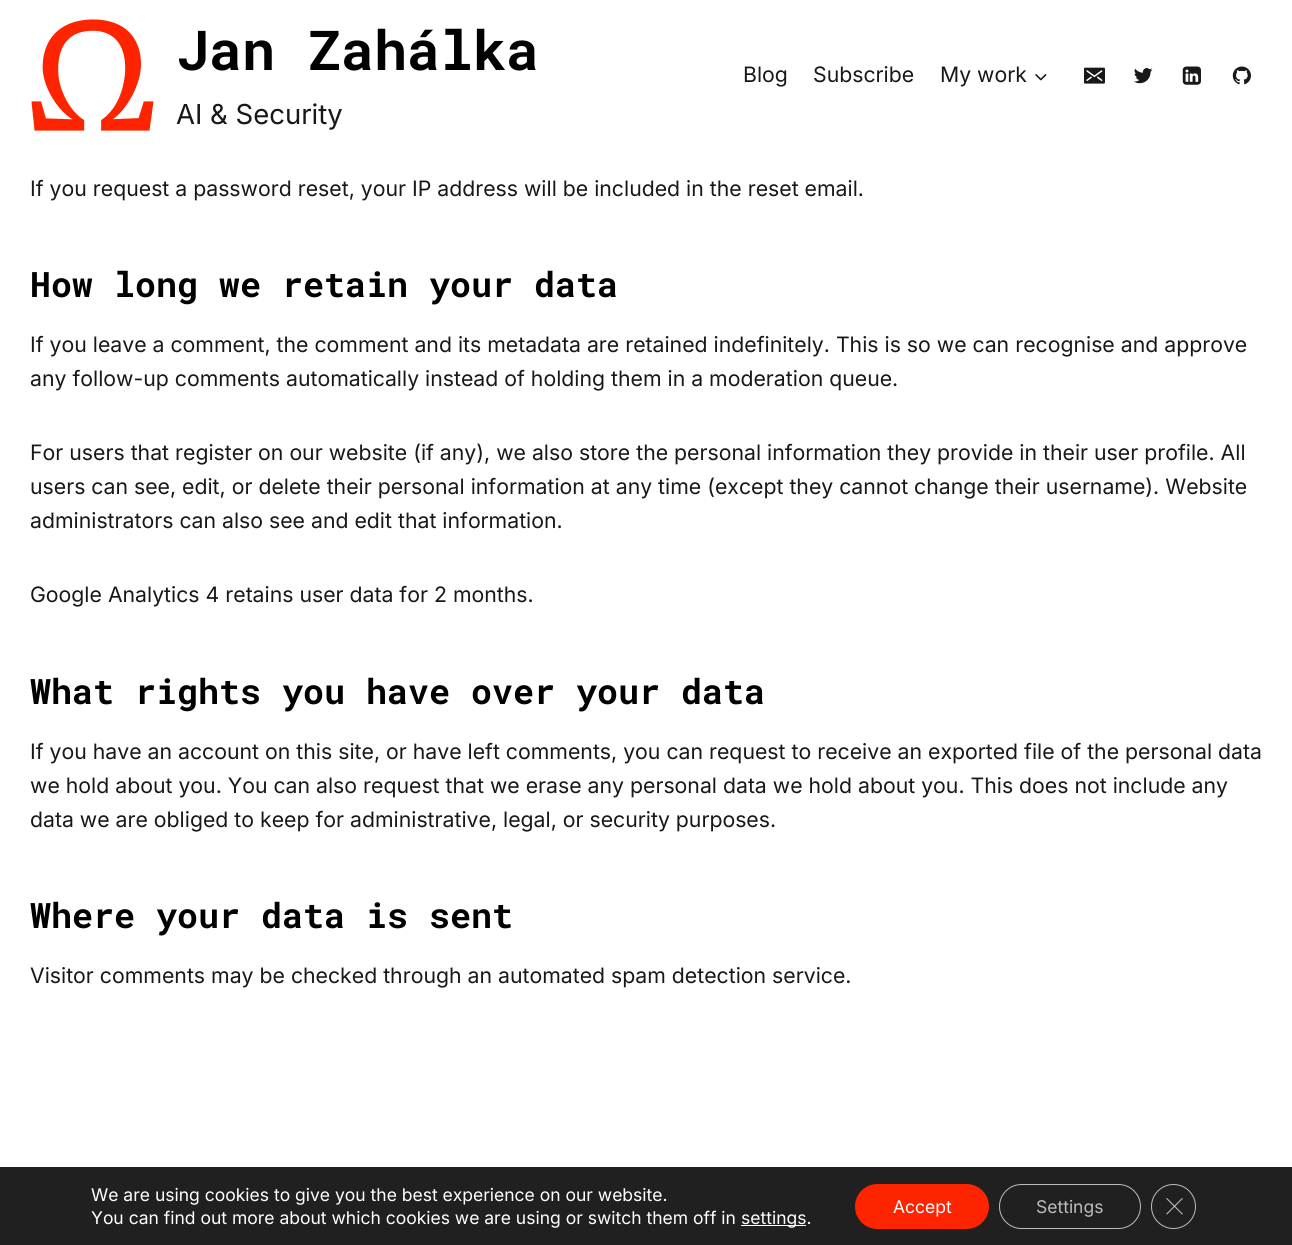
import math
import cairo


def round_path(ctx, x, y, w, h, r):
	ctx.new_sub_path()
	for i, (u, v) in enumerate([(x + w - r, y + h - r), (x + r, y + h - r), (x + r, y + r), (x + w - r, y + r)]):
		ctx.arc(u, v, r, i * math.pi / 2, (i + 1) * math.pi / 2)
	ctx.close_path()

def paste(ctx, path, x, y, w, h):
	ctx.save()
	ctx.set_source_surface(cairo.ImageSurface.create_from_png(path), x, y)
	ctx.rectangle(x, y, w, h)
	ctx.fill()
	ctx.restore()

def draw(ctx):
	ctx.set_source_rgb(1, 1, 1)
	ctx.paint()
	paste(ctx, 'media/1.png', 31, 19, 123, 112)
	ctx.select_font_face('Roboto Mono', cairo.FONT_SLANT_NORMAL, cairo.FONT_WEIGHT_BOLD)
	ctx.set_font_size(55)
	ctx.set_source_rgb(0, 0, 0)
	ctx.move_to(176, 70)
	ctx.show_text('Jan Zahálka')
	ctx.select_font_face('Inter')
	ctx.set_font_size(27.5)
	ctx.set_source_rgb(0.094, 0.094, 0.094)
	ctx.move_to(176, 124)
	ctx.show_text('AI & Security')
	ctx.set_font_size(21.25)
	for x, y, s in [
		(743, 82, 'Blog'),
		(813, 82, 'Subscribe'),
		(940, 82, 'My work'),
	]:
		ctx.move_to(x, y)
		ctx.show_text(s)
	paste(ctx, 'media/2.png', 1035, 74, 12, 7)
	paste(ctx, 'media/3.png', 1084, 67, 21, 17)
	paste(ctx, 'media/4.png', 1134, 68, 19, 16)
	paste(ctx, 'media/5.png', 1182, 66, 19, 19)
	paste(ctx, 'media/6.png', 1232, 66, 19, 19)
	ctx.move_to(30, 196)
	ctx.show_text('If you request a password reset, your IP address will be included in the reset email.')
	ctx.select_font_face('Roboto Mono', cairo.FONT_SLANT_NORMAL, cairo.FONT_WEIGHT_BOLD)
	ctx.set_font_size(35)
	ctx.set_source_rgb(0, 0, 0)
	ctx.move_to(30, 297)
	ctx.show_text('How long we retain your data')
	ctx.select_font_face('Inter')
	ctx.set_font_size(21.25)
	ctx.set_source_rgb(0.094, 0.094, 0.094)
	for x, y, s in [
		(30, 352, 'If you leave a comment, the comment and its metadata are retained indefinitely. This is so we can recognise and approve'),
		(30, 386, 'any follow-up comments automatically instead of holding them in a moderation queue.'),
		(30, 460, 'For users that register on our website (if any), we also store the personal information they provide in their user profile. All'),
		(30, 494, 'users can see, edit, or delete their personal information at any time (except they cannot change their username). Website'),
		(30, 528, 'administrators can also see and edit that information.'),
		(30, 602, 'Google Analytics 4 retains user data for 2 months.'),
	]:
		ctx.move_to(x, y)
		ctx.show_text(s)
	ctx.select_font_face('Roboto Mono', cairo.FONT_SLANT_NORMAL, cairo.FONT_WEIGHT_BOLD)
	ctx.set_font_size(35)
	ctx.set_source_rgb(0, 0, 0)
	ctx.move_to(30, 704)
	ctx.show_text('What rights you have over your data')
	ctx.select_font_face('Inter')
	ctx.set_font_size(21.25)
	ctx.set_source_rgb(0.094, 0.094, 0.094)
	for x, y, s in [
		(30, 759, 'If you have an account on this site, or have left comments, you can request to receive an exported file of the personal data'),
		(30, 793, 'we hold about you. You can also request that we erase any personal data we hold about you. This does not include any'),
		(30, 827, 'data we are obliged to keep for administrative, legal, or security purposes.'),
	]:
		ctx.move_to(x, y)
		ctx.show_text(s)
	ctx.select_font_face('Roboto Mono', cairo.FONT_SLANT_NORMAL, cairo.FONT_WEIGHT_BOLD)
	ctx.set_font_size(35)
	ctx.set_source_rgb(0, 0, 0)
	ctx.move_to(30, 928)
	ctx.show_text('Where your data is sent')
	ctx.select_font_face('Inter')
	ctx.set_font_size(21.25)
	ctx.set_source_rgb(0.094, 0.094, 0.094)
	ctx.move_to(30, 983)
	ctx.show_text('Visitor comments may be checked through an automated spam detection service.')
	ctx.set_source_rgb(0.125, 0.125, 0.125)
	ctx.rectangle(0, 1167, 1292, 78)
	ctx.fill()
	ctx.set_font_size(17.5)
	ctx.set_source_rgb(1, 1, 1)
	ctx.move_to(91, 1201)
	ctx.show_text('We are using cookies to give you the best experience on our website.')
	ctx.move_to(91, 1224)
	ctx.show_text('You can find out more about which cookies we are using or switch them off in')
	ctx.rectangle(741, 1225, 65, 1)
	ctx.fill()
	ctx.move_to(741, 1224)
	ctx.show_text('settings.')
	ctx.set_source_rgb(1, 0.141, 0)
	round_path(ctx, 855, 1184, 134, 45, 22.5)
	ctx.fill()
	ctx.set_source_rgb(1, 1, 1)
	ctx.move_to(893, 1213)
	ctx.show_text('Accept')
	round_path(ctx, 999.5, 1184.5, 141, 44, 22)
	ctx.set_source_rgb(0.737, 0.737, 0.737)
	ctx.set_line_width(1)
	ctx.stroke()
	ctx.move_to(1036, 1213)
	ctx.show_text('Settings')
	ctx.new_path()
	ctx.arc(1173.5, 1206.5, 22, 0, 2 * math.pi)
	ctx.stroke()
	ctx.new_path()
	ctx.move_to(1182, 1198)
	ctx.line_to(1183, 1198.5)
	ctx.line_to(1167, 1214.5)
	ctx.line_to(1166, 1214)
	ctx.close_path()
	ctx.fill()
	ctx.new_path()
	ctx.move_to(1166, 1198.5)
	ctx.line_to(1167, 1198)
	ctx.line_to(1183, 1214)
	ctx.line_to(1182, 1214.5)
	ctx.close_path()
	ctx.fill()


surface = cairo.ImageSurface(cairo.FORMAT_RGB24, 1292, 1245)
ctx = cairo.Context(surface)
options = cairo.FontOptions()
options.set_hint_metrics(cairo.HINT_METRICS_OFF)
options.set_hint_style(cairo.HINT_STYLE_NONE)
ctx.set_font_options(options)
ctx.set_miter_limit(4)
draw(ctx)
surface.write_to_png('image.png')
